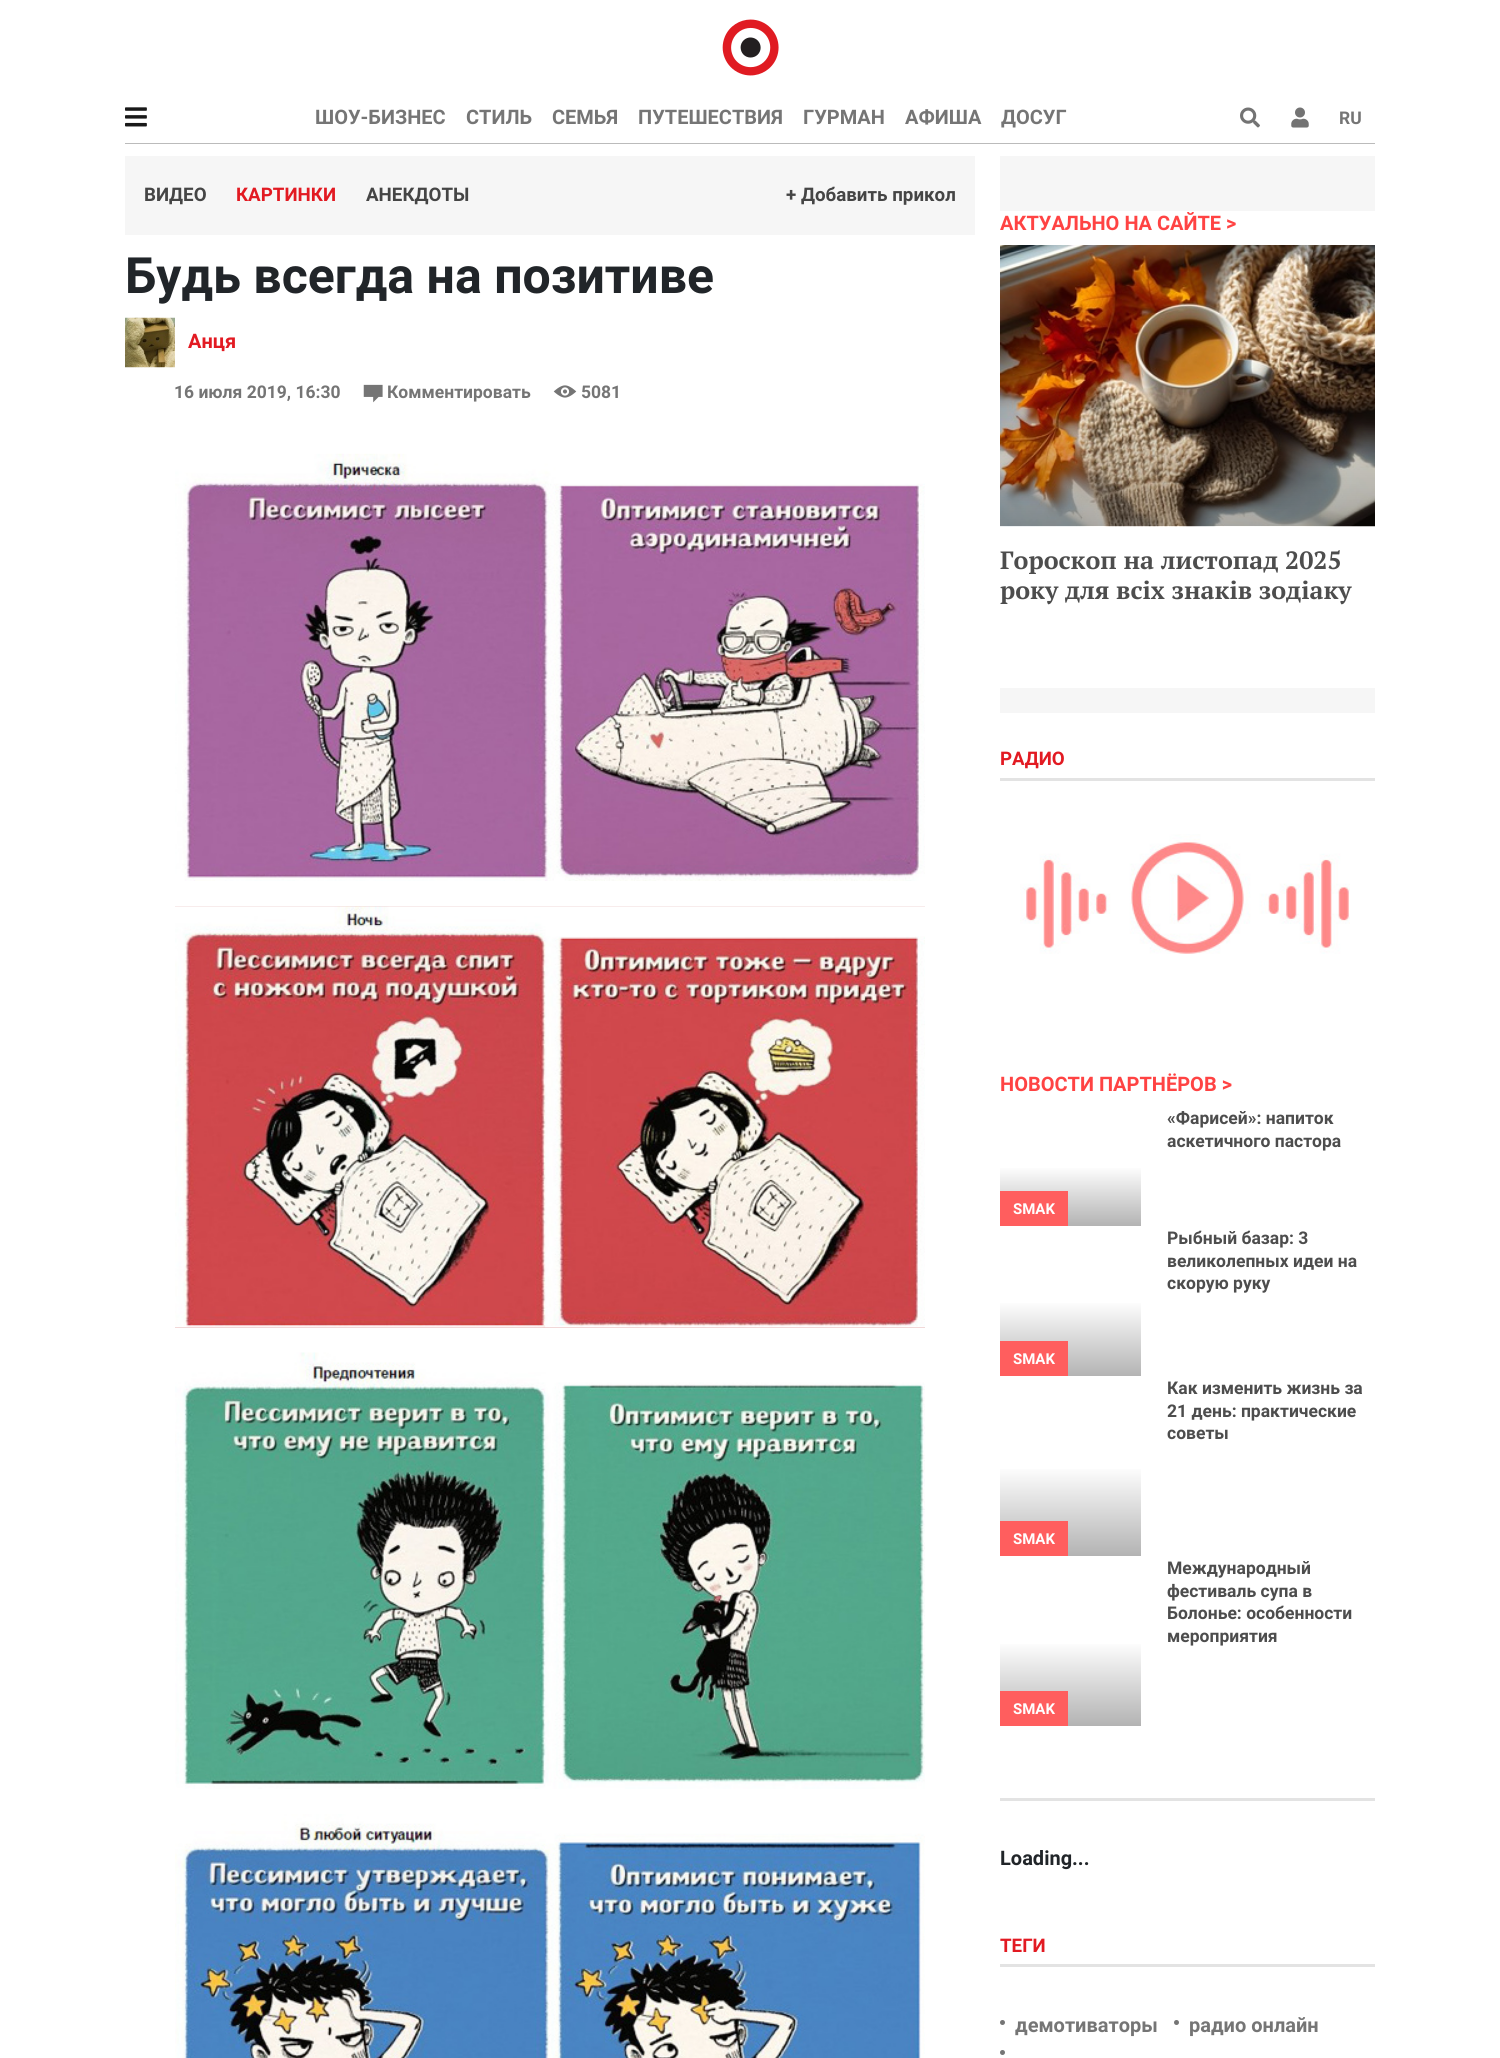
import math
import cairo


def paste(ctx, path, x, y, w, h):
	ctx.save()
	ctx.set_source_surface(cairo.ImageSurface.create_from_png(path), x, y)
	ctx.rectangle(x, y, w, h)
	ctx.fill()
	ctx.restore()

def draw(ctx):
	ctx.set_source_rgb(1, 1, 1)
	ctx.paint()
	paste(ctx, 'media/1.png', 722, 19, 57, 57)
	ctx.set_source_rgb(0.733, 0.733, 0.733)
	ctx.rectangle(125, 143, 1250, 1)
	ctx.fill()
	paste(ctx, 'media/2.png', 125, 107, 22, 20)
	ctx.select_font_face('Roboto', cairo.FONT_SLANT_NORMAL, cairo.FONT_WEIGHT_BOLD)
	ctx.set_font_size(20)
	ctx.set_source_rgb(0.459, 0.459, 0.459)
	for x, y, s in [
		(315, 124, 'ШОУ-БИЗНЕС'),
		(466, 124, 'СТИЛЬ'),
		(552, 124, 'СЕМЬЯ'),
		(638, 124, 'ПУТЕШЕСТВИЯ'),
		(803, 124, 'ГУРМАН'),
		(905, 124, 'АФИША'),
		(1001, 124, 'ДОСУГ'),
	]:
		ctx.move_to(x, y)
		ctx.show_text(s)
	paste(ctx, 'media/3.png', 1240, 107, 20, 21)
	paste(ctx, 'media/4.png', 1291, 107, 18, 21)
	ctx.set_font_size(17.5)
	ctx.move_to(1339, 124)
	ctx.show_text('RU')
	ctx.set_source_rgb(0.961, 0.961, 0.961)
	ctx.rectangle(125, 156, 850, 79)
	ctx.fill()
	ctx.set_font_size(18.75)
	ctx.set_source_rgb(0.271, 0.271, 0.271)
	ctx.move_to(144, 201)
	ctx.show_text('ВИДЕО')
	ctx.set_source_rgb(0.886, 0.102, 0.133)
	ctx.move_to(236, 201)
	ctx.show_text('КАРТИНКИ')
	ctx.set_source_rgb(0.271, 0.271, 0.271)
	ctx.move_to(366, 201)
	ctx.show_text('АНЕКДОТЫ')
	ctx.move_to(786, 201)
	ctx.show_text('+ Добавить прикол')
	ctx.set_font_size(50)
	ctx.set_source_rgb(0.129, 0.145, 0.161)
	ctx.move_to(125, 293)
	ctx.show_text('Будь всегда на позитиве')
	paste(ctx, 'media/5.png', 125, 317, 50, 51)
	ctx.set_font_size(20)
	ctx.set_source_rgb(0.886, 0.102, 0.133)
	ctx.move_to(188, 348)
	ctx.show_text('Анця')
	ctx.set_font_size(17.5)
	ctx.set_source_rgb(0.459, 0.459, 0.459)
	ctx.move_to(174, 398)
	ctx.show_text('16 июля 2019, 16:30')
	paste(ctx, 'media/6.png', 363, 384, 20, 19)
	ctx.move_to(387, 398)
	ctx.show_text('Комментировать')
	paste(ctx, 'media/7.png', 553, 385, 24, 13)
	ctx.move_to(581, 398)
	ctx.show_text('5081')
	paste(ctx, 'media/8.png', 175, 453, 750, 428)
	ctx.set_source_rgb(0.89, 0.694, 0.694)
	ctx.rectangle(175, 906, 750, 422)
	ctx.fill()
	paste(ctx, 'media/9.png', 175, 906, 750, 422)
	paste(ctx, 'media/10.png', 175, 1352, 750, 437)
	paste(ctx, 'media/11.png', 175, 1814, 750, 244)
	ctx.set_source_rgb(0.961, 0.961, 0.961)
	ctx.rectangle(1000, 156, 375, 55)
	ctx.fill()
	ctx.set_font_size(20)
	ctx.set_source_rgb(1, 0.263, 0.263)
	ctx.move_to(1000, 230)
	ctx.show_text('АКТУАЛЬНО НА САЙТЕ >')
	paste(ctx, 'media/12.png', 1000, 245, 375, 282)
	ctx.select_font_face('PT Serif', cairo.FONT_SLANT_NORMAL, cairo.FONT_WEIGHT_BOLD)
	ctx.set_font_size(25)
	ctx.set_source_rgb(0.302, 0.302, 0.302)
	ctx.move_to(1000, 569)
	ctx.show_text('Гороскоп на листопад 2025')
	ctx.move_to(1000, 599)
	ctx.show_text('року для всіх знаків зодіаку')
	ctx.set_source_rgb(0.961, 0.961, 0.961)
	ctx.rectangle(1000, 688, 375, 25)
	ctx.fill()
	ctx.set_source_rgb(0.89, 0.89, 0.89)
	ctx.rectangle(1000, 778, 375, 3)
	ctx.fill()
	ctx.select_font_face('Roboto', cairo.FONT_SLANT_NORMAL, cairo.FONT_WEIGHT_BOLD)
	ctx.set_font_size(18.75)
	ctx.set_source_rgb(0.886, 0.102, 0.133)
	ctx.move_to(1000, 765)
	ctx.show_text('РАДИО')
	paste(ctx, 'media/13.png', 1020, 834, 330, 120)
	ctx.set_font_size(20)
	ctx.set_source_rgb(1, 0.263, 0.263)
	ctx.move_to(1000, 1091)
	ctx.show_text('НОВОСТИ ПАРТНЁРОВ >')
	ctx.set_font_size(17.5)
	ctx.set_source_rgb(0.302, 0.302, 0.302)
	ctx.move_to(1167, 1124)
	ctx.show_text('«Фарисей»: напиток')
	ctx.move_to(1167, 1147)
	ctx.show_text('аскетичного пастора')
	gradient = cairo.LinearGradient(1071, 1166, 1071, 1226)
	gradient.add_color_stop_rgba(0, 1, 1, 1, 1)
	gradient.add_color_stop_rgba(1, 0.702, 0.702, 0.702, 1)
	ctx.set_source(gradient)
	ctx.rectangle(1000, 1168, 141, 58)
	ctx.fill()
	ctx.set_source_rgb(1, 0.369, 0.369)
	ctx.rectangle(1000, 1191, 68, 35)
	ctx.fill()
	ctx.set_font_size(15)
	ctx.set_source_rgb(1, 1, 1)
	ctx.move_to(1013, 1214)
	ctx.show_text('SMAK')
	ctx.set_font_size(17.5)
	ctx.set_source_rgb(0.302, 0.302, 0.302)
	for x, y, s in [
		(1167, 1244, 'Рыбный базар: 3'),
		(1167, 1267, 'великолепных идеи на'),
		(1167, 1289, 'скорую руку'),
	]:
		ctx.move_to(x, y)
		ctx.show_text(s)
	gradient = cairo.LinearGradient(1071, 1301, 1071, 1376)
	gradient.add_color_stop_rgba(0, 1, 1, 1, 1)
	gradient.add_color_stop_rgba(1, 0.702, 0.702, 0.702, 1)
	ctx.set_source(gradient)
	ctx.rectangle(1000, 1303, 141, 73)
	ctx.fill()
	ctx.set_source_rgb(1, 0.369, 0.369)
	ctx.rectangle(1000, 1341, 68, 35)
	ctx.fill()
	ctx.set_font_size(15)
	ctx.set_source_rgb(1, 1, 1)
	ctx.move_to(1013, 1364)
	ctx.show_text('SMAK')
	ctx.set_font_size(17.5)
	ctx.set_source_rgb(0.302, 0.302, 0.302)
	for x, y, s in [
		(1167, 1394, 'Как изменить жизнь за'),
		(1167, 1417, '21 день: практические'),
		(1167, 1439, 'советы'),
	]:
		ctx.move_to(x, y)
		ctx.show_text(s)
	gradient = cairo.LinearGradient(1071, 1466, 1071, 1556)
	gradient.add_color_stop_rgba(0, 1, 1, 1, 1)
	gradient.add_color_stop_rgba(1, 0.702, 0.702, 0.702, 1)
	ctx.set_source(gradient)
	ctx.rectangle(1000, 1469, 141, 87)
	ctx.fill()
	ctx.set_source_rgb(1, 0.369, 0.369)
	ctx.rectangle(1000, 1521, 68, 35)
	ctx.fill()
	ctx.set_font_size(15)
	ctx.set_source_rgb(1, 1, 1)
	ctx.move_to(1013, 1544)
	ctx.show_text('SMAK')
	ctx.set_font_size(17.5)
	ctx.set_source_rgb(0.302, 0.302, 0.302)
	for x, y, s in [
		(1167, 1574, 'Международный'),
		(1167, 1597, 'фестиваль супа в'),
		(1167, 1619, 'Болонье: особенности'),
		(1167, 1642, 'мероприятия'),
	]:
		ctx.move_to(x, y)
		ctx.show_text(s)
	gradient = cairo.LinearGradient(1071, 1641, 1071, 1726)
	gradient.add_color_stop_rgba(0, 1, 1, 1, 1)
	gradient.add_color_stop_rgba(1, 0.702, 0.702, 0.702, 1)
	ctx.set_source(gradient)
	ctx.rectangle(1000, 1644, 141, 82)
	ctx.fill()
	ctx.set_source_rgb(1, 0.369, 0.369)
	ctx.rectangle(1000, 1691, 68, 35)
	ctx.fill()
	ctx.set_font_size(15)
	ctx.set_source_rgb(1, 1, 1)
	ctx.move_to(1013, 1714)
	ctx.show_text('SMAK')
	ctx.set_source_rgb(0.89, 0.89, 0.89)
	ctx.rectangle(1000, 1798, 375, 3)
	ctx.fill()
	ctx.set_font_size(20)
	ctx.set_source_rgb(0.129, 0.145, 0.161)
	ctx.move_to(1000, 1865)
	ctx.show_text('Loading...')
	ctx.set_source_rgb(0.89, 0.89, 0.89)
	ctx.rectangle(1000, 1964, 375, 3)
	ctx.fill()
	ctx.set_font_size(18.75)
	ctx.set_source_rgb(0.886, 0.102, 0.133)
	ctx.move_to(1000, 1952)
	ctx.show_text('ТЕГИ')
	ctx.set_source_rgb(0.459, 0.459, 0.459)
	ctx.new_path()
	ctx.arc(1002.5, 2022.5, 2.5, 0, 2 * math.pi)
	ctx.fill()
	ctx.set_font_size(20)
	ctx.move_to(1015, 2032)
	ctx.show_text('демотиваторы')
	ctx.new_path()
	ctx.arc(1176.5, 2022.5, 2.5, 0, 2 * math.pi)
	ctx.fill()
	ctx.move_to(1189, 2032)
	ctx.show_text('радио онлайн')
	ctx.new_path()
	ctx.arc(1002.5, 2052.5, 2.5, 0, 2 * math.pi)
	ctx.fill()


surface = cairo.ImageSurface(cairo.FORMAT_RGB24, 1500, 2058)
ctx = cairo.Context(surface)
options = cairo.FontOptions()
options.set_hint_metrics(cairo.HINT_METRICS_OFF)
options.set_hint_style(cairo.HINT_STYLE_NONE)
ctx.set_font_options(options)
ctx.set_miter_limit(4)
draw(ctx)
surface.write_to_png('image.png')
